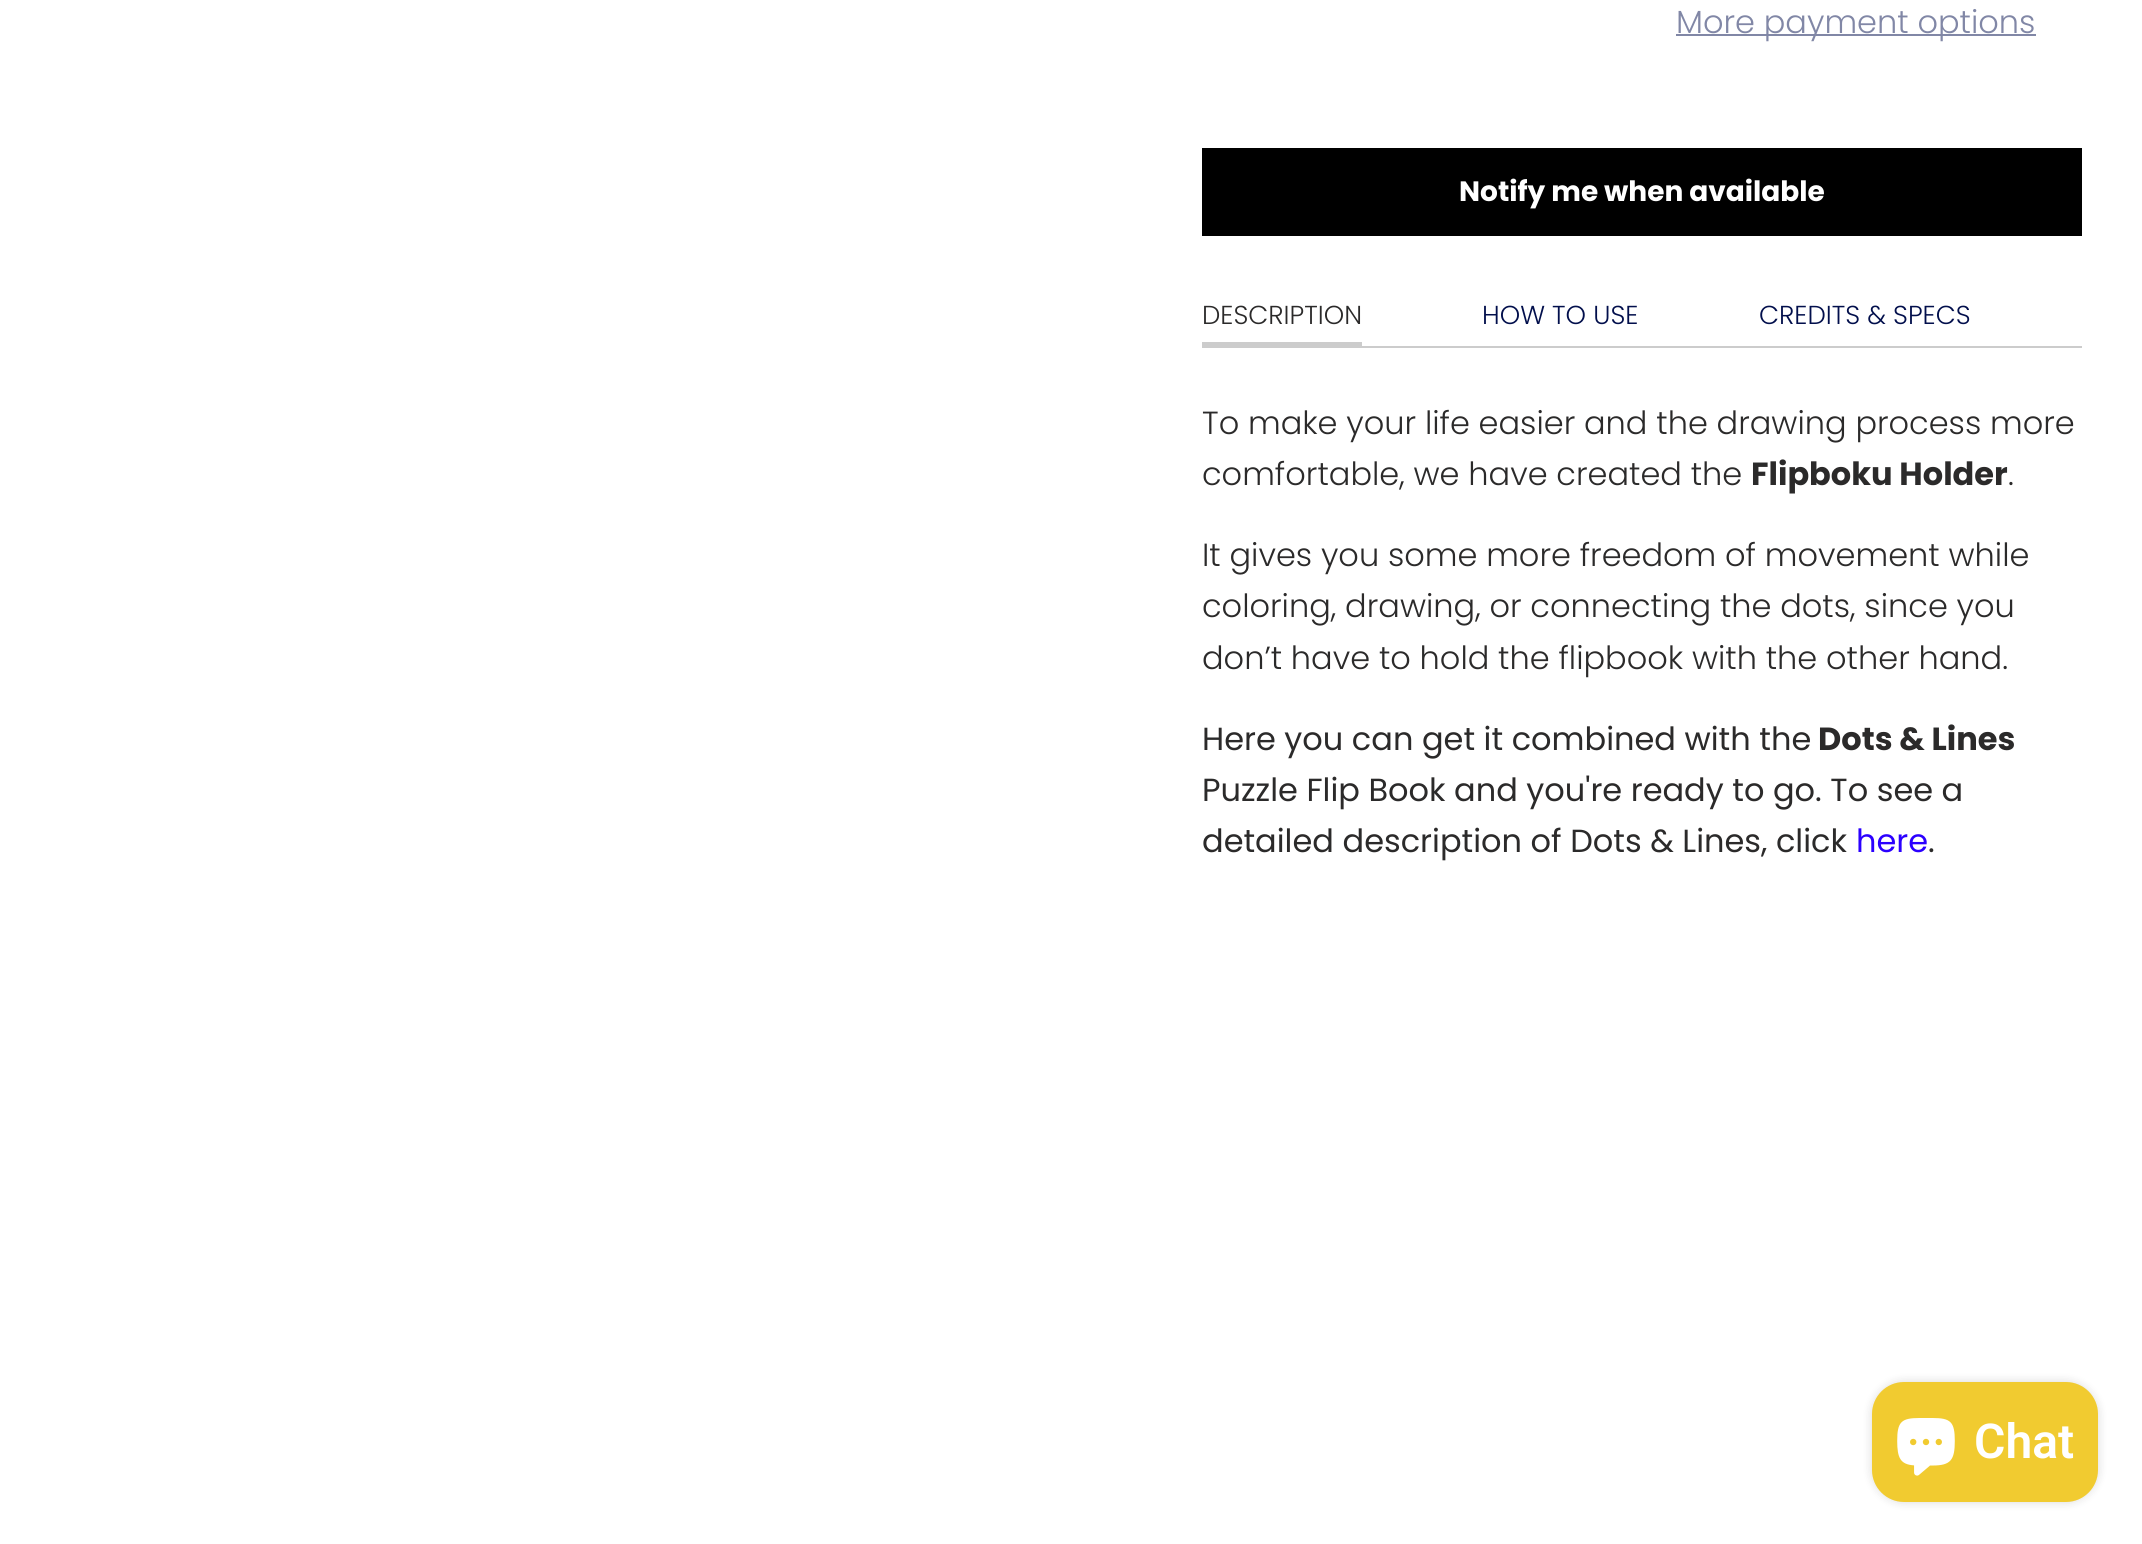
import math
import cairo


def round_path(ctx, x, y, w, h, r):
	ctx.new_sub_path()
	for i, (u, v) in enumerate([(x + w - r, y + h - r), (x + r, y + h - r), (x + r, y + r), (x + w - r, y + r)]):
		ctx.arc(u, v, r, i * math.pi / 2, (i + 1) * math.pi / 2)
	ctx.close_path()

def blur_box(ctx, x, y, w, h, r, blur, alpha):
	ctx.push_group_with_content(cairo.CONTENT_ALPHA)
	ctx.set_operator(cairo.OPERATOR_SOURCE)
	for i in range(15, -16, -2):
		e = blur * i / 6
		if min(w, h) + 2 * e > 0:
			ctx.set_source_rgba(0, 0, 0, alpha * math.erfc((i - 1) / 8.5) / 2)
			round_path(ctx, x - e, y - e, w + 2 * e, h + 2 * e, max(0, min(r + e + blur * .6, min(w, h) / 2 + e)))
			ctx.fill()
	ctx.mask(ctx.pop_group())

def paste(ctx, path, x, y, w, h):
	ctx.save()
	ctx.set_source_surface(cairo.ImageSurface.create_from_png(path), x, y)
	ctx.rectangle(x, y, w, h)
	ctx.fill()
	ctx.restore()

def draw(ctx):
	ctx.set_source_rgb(1, 1, 1)
	ctx.paint()
	ctx.set_source_rgb(0.506, 0.529, 0.651)
	ctx.rectangle(1676, 34, 360, 2)
	ctx.fill()
	ctx.select_font_face('Poppins Light')
	ctx.set_font_size(32)
	ctx.move_to(1676, 33)
	ctx.show_text('More payment options')
	ctx.set_source_rgb(0, 0, 0)
	ctx.rectangle(1202, 148, 880, 88)
	ctx.fill()
	ctx.select_font_face('Poppins', cairo.FONT_SLANT_NORMAL, cairo.FONT_WEIGHT_BOLD)
	ctx.set_font_size(28)
	ctx.set_source_rgb(1, 1, 1)
	ctx.move_to(1459, 201)
	ctx.show_text('Notify me when available')
	ctx.set_source_rgb(0.8, 0.8, 0.8)
	ctx.rectangle(1362, 346, 720, 2)
	ctx.fill()
	ctx.rectangle(1202, 342, 160, 6)
	ctx.fill()
	ctx.select_font_face('Poppins Light')
	ctx.set_font_size(26)
	ctx.set_source_rgb(0.169, 0.165, 0.165)
	ctx.move_to(1202, 324)
	ctx.show_text('DESCRIPTION')
	ctx.set_source_rgb(0.008, 0.059, 0.298)
	ctx.move_to(1482, 324)
	ctx.show_text('HOW TO USE')
	ctx.move_to(1759, 324)
	ctx.show_text('CREDITS & SPECS')
	ctx.set_font_size(32)
	ctx.set_source_rgb(0.169, 0.165, 0.165)
	ctx.move_to(1202, 434)
	ctx.show_text('To make your life easier and the drawing process more')
	ctx.move_to(1202, 485)
	ctx.show_text('comfortable, we have created the')
	ctx.select_font_face('Poppins', cairo.FONT_SLANT_NORMAL, cairo.FONT_WEIGHT_BOLD)
	ctx.move_to(1751, 485)
	ctx.show_text('Flipboku Holder')
	ctx.select_font_face('Poppins Light')
	for x, y, s in [
		(2008, 485, '.'),
		(1202, 566, 'It gives you some more freedom of movement while'),
		(1202, 617, 'coloring, drawing, or connecting the dots, since you'),
		(1202, 669, 'don’t have to hold the flipbook with the other hand.'),
	]:
		ctx.move_to(x, y)
		ctx.show_text(s)
	ctx.select_font_face('Poppins')
	ctx.move_to(1202, 750)
	ctx.show_text('Here you can get it combined with the')
	ctx.select_font_face('Poppins', cairo.FONT_SLANT_NORMAL, cairo.FONT_WEIGHT_BOLD)
	ctx.move_to(1818, 750)
	ctx.show_text('Dots & Lines')
	ctx.select_font_face('Poppins')
	ctx.move_to(1202, 801)
	ctx.show_text('Puzzle Flip Book and you\'re ready to go. To see a')
	ctx.move_to(1202, 852)
	ctx.show_text('detailed description of Dots & Lines, click')
	ctx.set_source_rgb(0.169, 0, 1)
	ctx.move_to(1856, 852)
	ctx.show_text('here')
	ctx.set_source_rgb(0.169, 0.165, 0.165)
	ctx.move_to(1928, 852)
	ctx.show_text('.')
	ctx.set_source_rgb(0, 0, 0)
	blur_box(ctx, 1872, 1382, 226, 120, 32, 5, 0.15)
	ctx.set_source_rgb(0.945, 0.796, 0.188)
	round_path(ctx, 1872, 1382, 226, 120, 32)
	ctx.fill()
	paste(ctx, 'media/1.png', 1897, 1418, 58, 58)
	ctx.select_font_face('Roboto SemiBold')
	ctx.set_font_size(48)
	ctx.set_source_rgb(1, 1, 1)
	ctx.move_to(1974, 1458)
	ctx.show_text('Chat')


surface = cairo.ImageSurface(cairo.FORMAT_RGB24, 2142, 1544)
ctx = cairo.Context(surface)
options = cairo.FontOptions()
options.set_hint_metrics(cairo.HINT_METRICS_OFF)
options.set_hint_style(cairo.HINT_STYLE_NONE)
ctx.set_font_options(options)
ctx.set_miter_limit(4)
draw(ctx)
surface.write_to_png('image.png')
